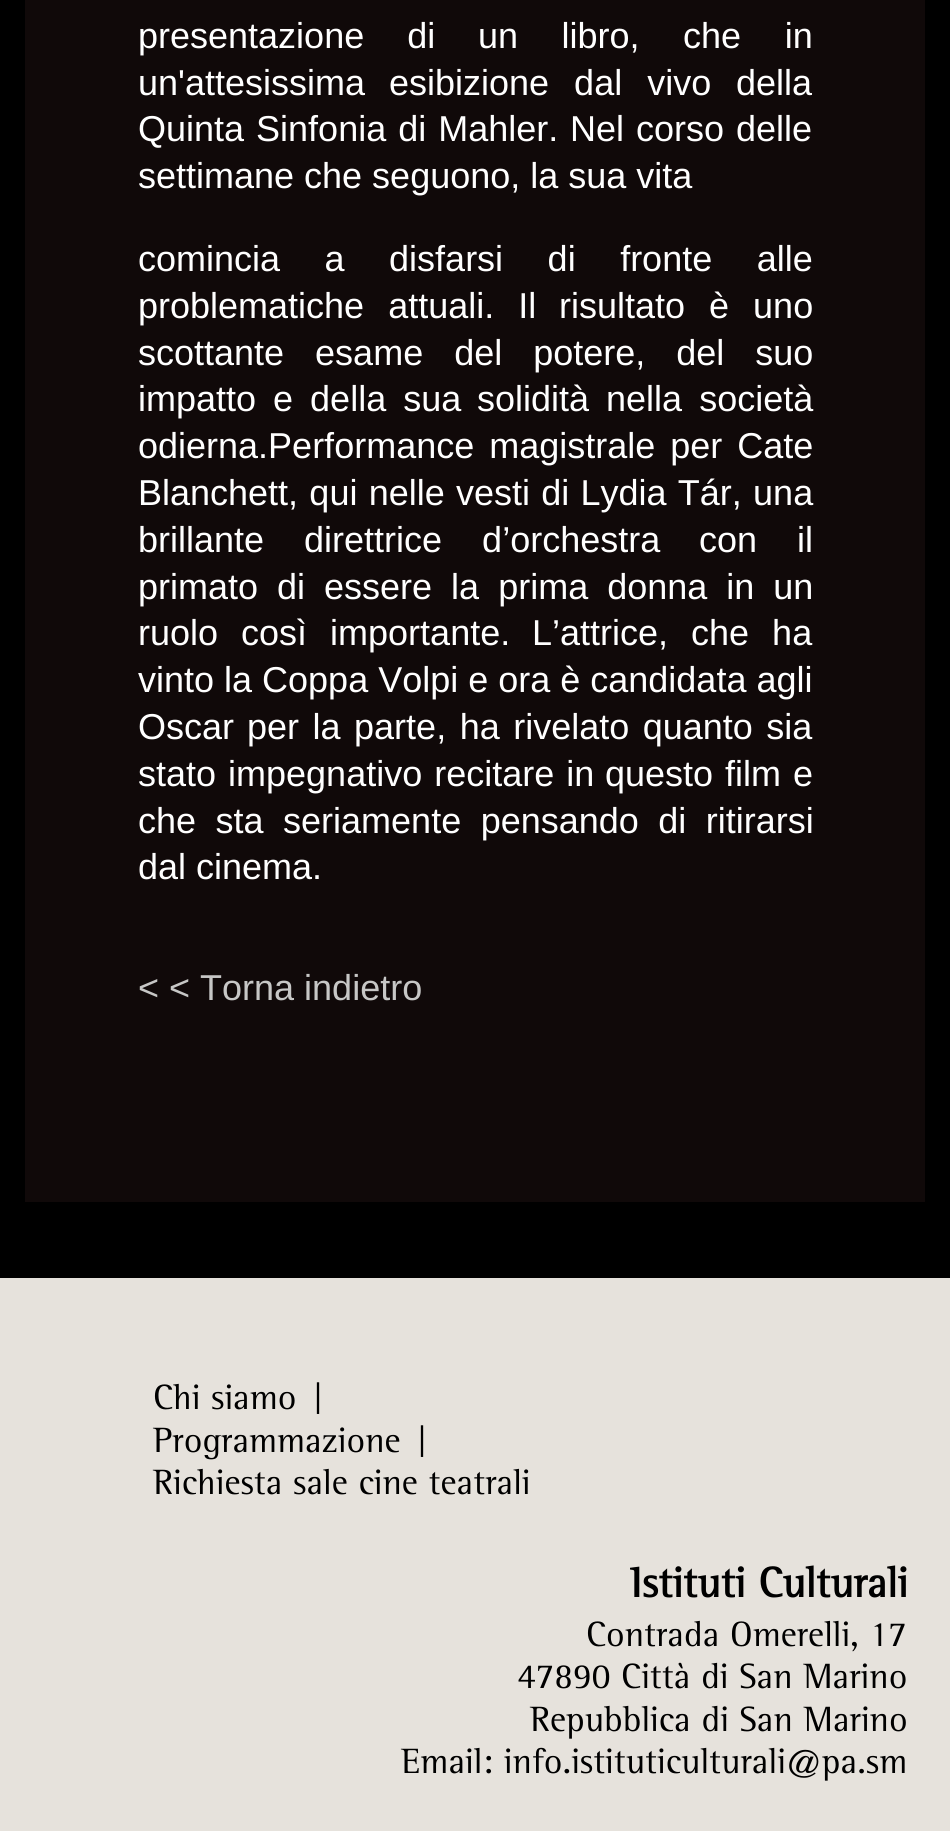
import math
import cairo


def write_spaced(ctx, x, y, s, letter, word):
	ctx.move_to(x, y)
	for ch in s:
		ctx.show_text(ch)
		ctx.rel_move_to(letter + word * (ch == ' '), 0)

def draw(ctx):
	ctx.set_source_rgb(0, 0, 0)
	ctx.paint()
	ctx.set_source_rgb(0.063, 0.039, 0.039)
	ctx.rectangle(25, 0, 900, 1202)
	ctx.fill()
	ctx.select_font_face('Liberation Sans')
	ctx.set_font_size(36)
	ctx.set_source_rgb(1, 1, 1)
	write_spaced(ctx, 138, 48, 'presentazione di', 0, 33)
	write_spaced(ctx, 478, 48, 'un libro, che in', 0, 33.5)
	ctx.move_to(138, 95)
	ctx.show_text('un\'attesissima')
	write_spaced(ctx, 389, 95, 'esibizione dal vivo', 0, 15)
	ctx.move_to(736, 95)
	ctx.show_text('della')
	write_spaced(ctx, 138, 141, 'Quinta Sinfonia di Mahler.', 0, 2)
	write_spaced(ctx, 570, 141, 'Nel corso delle', 0, 2)
	ctx.move_to(138, 188)
	ctx.show_text('settimane che seguono, la sua vita')
	write_spaced(ctx, 138, 271, 'comincia a disfarsi di fronte alle', 0, 34.5)
	write_spaced(ctx, 138, 318, 'problematiche attuali. Il', 0, 14)
	write_spaced(ctx, 559, 318, 'risultato è uno', 0, 14)
	write_spaced(ctx, 138, 365, 'scottante esame del potere, del suo', 0, 21)
	write_spaced(ctx, 138, 411, 'impatto e della sua', 0, 7)
	write_spaced(ctx, 477, 411, 'solidità nella società', 0, 7)
	write_spaced(ctx, 138, 458, 'odierna.Performance magistrale per Cate', 0, 5)
	write_spaced(ctx, 138, 505, 'Blanchett, qui nelle vesti di Lydia Tár, una', 0, 1.25)
	write_spaced(ctx, 138, 552, 'brillante direttrice d’orchestra', 0, 30)
	write_spaced(ctx, 699, 552, 'con il', 0, 30)
	write_spaced(ctx, 138, 599, 'primato di essere la prima donna in un', 0, 9)
	write_spaced(ctx, 138, 645, 'ruolo così importante.', 0, 13)
	write_spaced(ctx, 532, 645, 'L’attrice, che ha', 0, 13)
	ctx.move_to(138, 692)
	ctx.show_text('vinto la Coppa Volpi e ora è candidata agli')
	ctx.move_to(138, 739)
	ctx.show_text('Oscar')
	write_spaced(ctx, 247, 739, 'per la parte, ha rivelato quanto sia', 0, 3.5)
	write_spaced(ctx, 138, 786, 'stato impegnativo recitare in', 0, 2)
	write_spaced(ctx, 605, 786, 'questo film e', 0, 2)
	write_spaced(ctx, 138, 833, 'che sta seriamente pensando di ritirarsi', 0, 9.5)
	ctx.move_to(138, 879)
	ctx.show_text('dal cinema.')
	ctx.set_source_rgb(0.78, 0.78, 0.776)
	ctx.move_to(138, 1000)
	ctx.show_text('< < Torna indietro')
	ctx.set_source_rgb(0.902, 0.886, 0.863)
	ctx.rectangle(0, 1278, 950, 553)
	ctx.fill()
	ctx.select_font_face('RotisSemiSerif')
	ctx.set_source_rgb(0, 0, 0)
	for x, y, s in [
		(153, 1409, 'Chi siamo'),
		(312, 1409, '|'),
		(153, 1452, 'Programmazione'),
		(416, 1452, '|'),
		(153, 1494, 'Richiesta sale cine teatrali'),
	]:
		ctx.move_to(x, y)
		ctx.show_text(s)
	ctx.select_font_face('RotisSemiSerif', cairo.FONT_SLANT_NORMAL, cairo.FONT_WEIGHT_BOLD)
	ctx.set_font_size(43.25)
	ctx.move_to(630, 1597)
	ctx.show_text('Istituti Culturali')
	ctx.select_font_face('RotisSemiSerif')
	ctx.set_font_size(36)
	for x, y, s in [
		(586, 1646, 'Contrada Omerelli, 17'),
		(517, 1688, '47890 Città di San Marino'),
		(530, 1731, 'Repubblica di San Marino'),
		(401, 1773, 'Email: info.istituticulturali@pa.sm'),
	]:
		ctx.move_to(x, y)
		ctx.show_text(s)


surface = cairo.ImageSurface(cairo.FORMAT_RGB24, 950, 1831)
ctx = cairo.Context(surface)
options = cairo.FontOptions()
options.set_hint_metrics(cairo.HINT_METRICS_OFF)
options.set_hint_style(cairo.HINT_STYLE_NONE)
ctx.set_font_options(options)
ctx.set_miter_limit(4)
draw(ctx)
surface.write_to_png('image.png')
